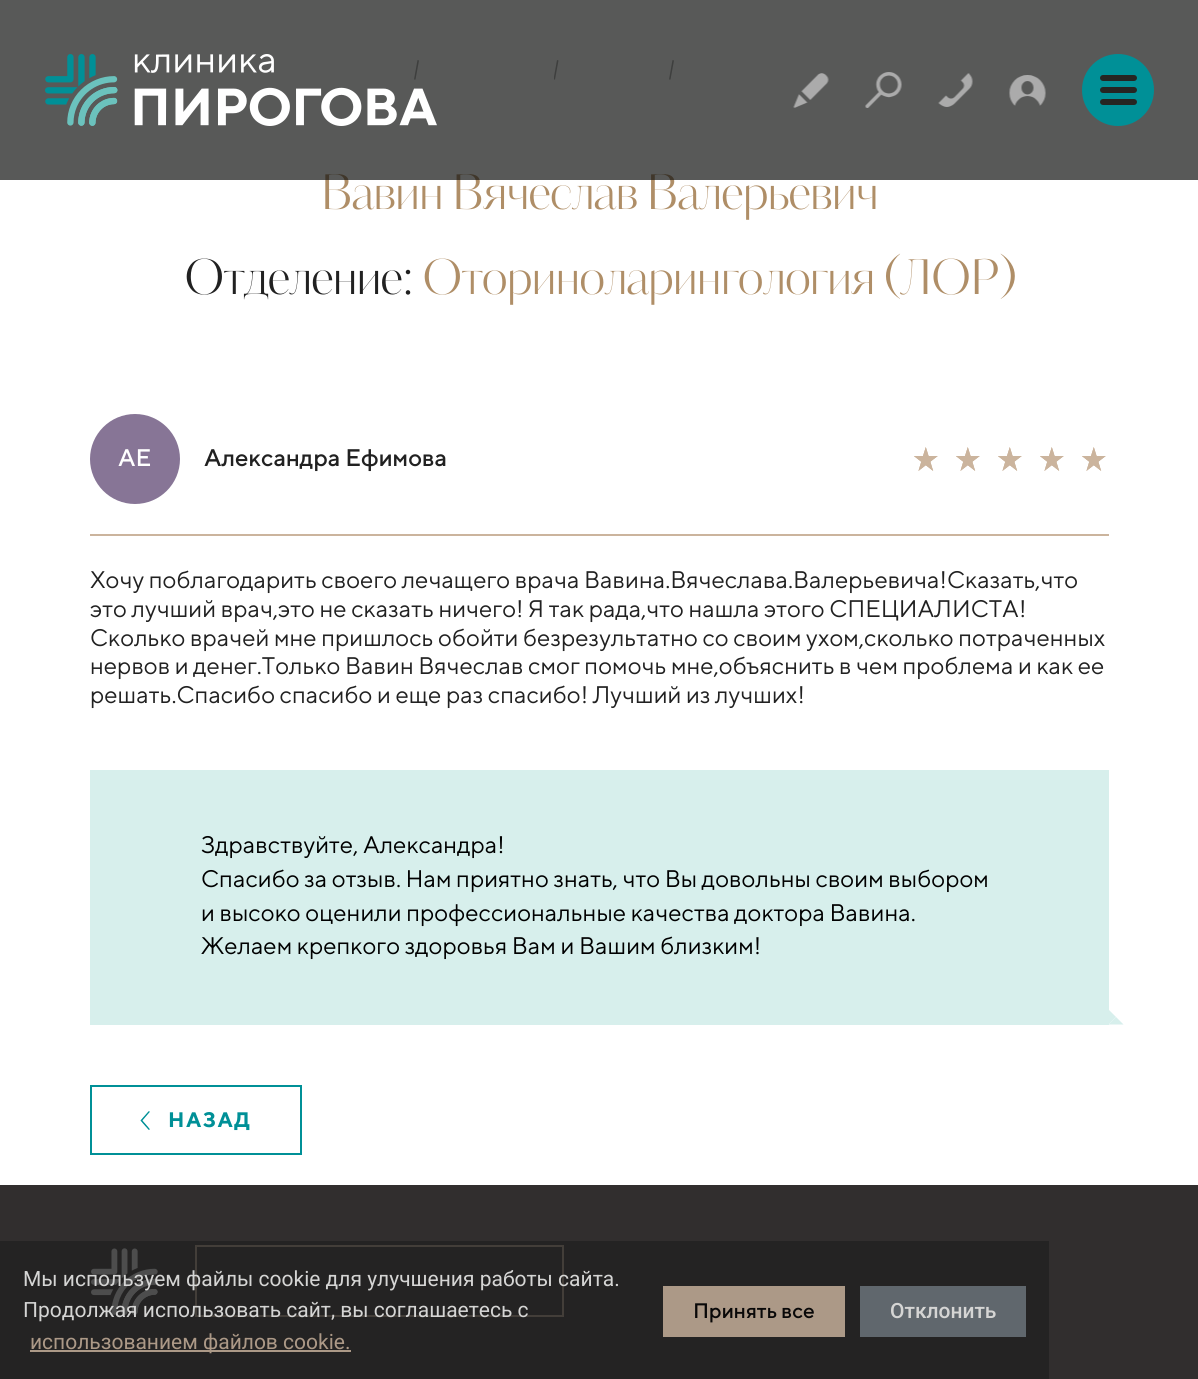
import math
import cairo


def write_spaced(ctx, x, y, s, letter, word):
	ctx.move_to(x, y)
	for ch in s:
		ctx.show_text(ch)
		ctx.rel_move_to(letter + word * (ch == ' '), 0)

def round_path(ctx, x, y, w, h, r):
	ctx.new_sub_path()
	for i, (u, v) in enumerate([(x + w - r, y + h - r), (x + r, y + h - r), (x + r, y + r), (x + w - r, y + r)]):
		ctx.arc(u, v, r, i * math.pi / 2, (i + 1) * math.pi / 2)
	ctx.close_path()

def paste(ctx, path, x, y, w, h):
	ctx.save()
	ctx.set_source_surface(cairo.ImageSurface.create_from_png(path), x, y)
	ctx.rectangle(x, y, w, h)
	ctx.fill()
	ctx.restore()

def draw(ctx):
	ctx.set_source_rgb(1, 1, 1)
	ctx.paint()
	ctx.set_source_rgb(0.655, 0.655, 0.655)
	ctx.set_fill_rule(cairo.FILL_RULE_EVEN_ODD)
	ctx.new_path()
	ctx.move_to(414, 79.5)
	ctx.line_to(417.5, 60)
	ctx.line_to(419, 60.5)
	ctx.line_to(415.5, 79.5)
	ctx.close_path()
	ctx.fill()
	ctx.save()
	ctx.set_fill_rule(cairo.FILL_RULE_WINDING)
	ctx.rectangle(554, 60, 6, 21)
	ctx.clip()
	ctx.set_fill_rule(cairo.FILL_RULE_EVEN_ODD)
	ctx.new_path()
	ctx.move_to(553.5, 79.5)
	ctx.line_to(557, 60)
	ctx.line_to(558.5, 60.5)
	ctx.line_to(555, 79.5)
	ctx.close_path()
	ctx.fill()
	ctx.restore()
	ctx.new_path()
	ctx.move_to(669, 79.5)
	ctx.line_to(672.5, 60)
	ctx.line_to(674, 60.5)
	ctx.line_to(670.5, 79.5)
	ctx.close_path()
	ctx.fill()
	ctx.select_font_face('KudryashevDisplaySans')
	ctx.set_font_size(48)
	ctx.set_source_rgb(0.686, 0.557, 0.404)
	write_spaced(ctx, 321, 209, 'Вавин Вячеслав Валерьевич', -0.95, 0)
	ctx.set_source_rgba(0.071, 0.075, 0.071, 0.7)
	ctx.rectangle(0, 0, 1198, 180)
	ctx.fill()
	paste(ctx, 'media/1.png', 45, 54, 392, 72)
	paste(ctx, 'media/2.png', 793, 73, 36, 35)
	paste(ctx, 'media/3.png', 865, 72, 37, 36)
	paste(ctx, 'media/4.png', 938, 73, 35, 34)
	paste(ctx, 'media/5.png', 1009, 75, 37, 31)
	ctx.set_source_rgb(0, 0.565, 0.592)
	ctx.arc(1118, 90, 36, 0, 2 * math.pi)
	ctx.fill()
	ctx.set_source_rgb(0.149, 0.145, 0.133)
	round_path(ctx, 1100, 75, 37, 6, 3)
	ctx.fill()
	round_path(ctx, 1100, 87, 37, 6, 3)
	ctx.fill()
	round_path(ctx, 1100, 99, 37, 6, 3)
	ctx.fill()
	ctx.set_source_rgb(0.129, 0.129, 0.129)
	write_spaced(ctx, 184, 294, 'Отделение:', -0.95, 0)
	ctx.set_source_rgb(0.686, 0.557, 0.404)
	write_spaced(ctx, 422, 294, 'Оториноларингология (ЛОР)', -0.95, 0)
	ctx.set_source_rgb(0.529, 0.459, 0.588)
	ctx.new_path()
	ctx.arc(135, 459, 45, 0, 2 * math.pi)
	ctx.fill()
	ctx.select_font_face('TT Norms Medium')
	ctx.set_font_size(24)
	ctx.set_source_rgb(1, 1, 1)
	ctx.move_to(118, 466)
	ctx.show_text('АЕ')
	ctx.set_source_rgb(0.129, 0.129, 0.129)
	ctx.move_to(204, 466)
	ctx.show_text('Александра Ефимова')
	paste(ctx, 'media/6.png', 914, 447, 192, 24)
	paste(ctx, 'media/7.png', 914, 447, 192, 24)
	ctx.set_source_rgb(0.796, 0.706, 0.616)
	ctx.rectangle(90, 534, 1019, 2)
	ctx.fill()
	ctx.select_font_face('TT Norms')
	ctx.set_source_rgb(0.129, 0.129, 0.129)
	for x, y, s in [
		(90, 588, 'Хочу поблагодарить своего лечащего врача Вавина.Вячеслава.Валерьевича!Сказать,что'),
		(90, 617, 'это лучший врач,это не сказать ничего! Я так рада,что нашла этого СПЕЦИАЛИСТА!'),
		(90, 646, 'Сколько врачей мне пришлось обойти безрезультатно со своим ухом,сколько потраченных'),
		(90, 674, 'нервов и денег.Только Вавин Вячеслав смог помочь мне,объяснить в чем проблема и как ее'),
		(90, 703, 'решать.Спасибо спасибо и еще раз спасибо! Лучший из лучших!'),
	]:
		ctx.move_to(x, y)
		ctx.show_text(s)
	ctx.set_source_rgb(0.843, 0.937, 0.925)
	ctx.rectangle(90, 770, 1019, 255)
	ctx.fill()
	ctx.set_source_rgb(0, 0, 0)
	for x, y, s in [
		(201, 853, 'Здравствуйте, Александра!'),
		(201, 887, 'Спасибо за отзыв. Нам приятно знать, что Вы довольны своим выбором'),
		(201, 921, 'и высоко оценили профессиональные качества доктора Вавина.'),
		(201, 954, 'Желаем крепкого здоровья Вам и Вашим близким!'),
	]:
		ctx.move_to(x, y)
		ctx.show_text(s)
	ctx.set_source_rgb(0.843, 0.937, 0.925)
	ctx.set_fill_rule(cairo.FILL_RULE_WINDING)
	ctx.new_path()
	ctx.move_to(1123.5, 1024.5)
	ctx.line_to(1108.5, 1024.5)
	ctx.line_to(1116, 1017)
	ctx.close_path()
	ctx.fill()
	ctx.new_path()
	ctx.move_to(1108.5, 1024.5)
	ctx.line_to(1108.5, 1009.5)
	ctx.line_to(1116, 1017)
	ctx.close_path()
	ctx.fill()
	ctx.rectangle(91, 1086, 210, 68)
	ctx.set_source_rgb(0, 0.565, 0.592)
	ctx.stroke()
	paste(ctx, 'media/8.png', 140, 1111, 10, 19)
	ctx.select_font_face('TT Norms', cairo.FONT_SLANT_NORMAL, cairo.FONT_WEIGHT_BOLD)
	ctx.set_font_size(21)
	write_spaced(ctx, 168, 1127, 'НАЗАД', 1.5, 0)
	ctx.set_source_rgb(0.192, 0.18, 0.18)
	ctx.rectangle(0, 1185, 1198, 194)
	ctx.fill()
	paste(ctx, 'media/9.png', 91, 1248, 67, 67)
	ctx.rectangle(196, 1246, 367, 70)
	ctx.set_source_rgb(0.796, 0.706, 0.616)
	ctx.stroke()
	ctx.set_source_rgba(0.129, 0.129, 0.129, 0.8)
	ctx.rectangle(0, 1241, 1049, 138)
	ctx.fill()
	ctx.select_font_face('Roboto')
	ctx.set_source_rgb(0.835, 0.835, 0.831)
	ctx.move_to(23, 1286)
	ctx.show_text('Мы используем файлы cookie для улучшения работы сайта.')
	ctx.move_to(23, 1317)
	ctx.show_text('Продолжая использовать сайт, вы соглашаетесь с')
	ctx.set_source_rgb(0.675, 0.6, 0.529)
	ctx.rectangle(30, 1350, 321, 2)
	ctx.fill()
	ctx.move_to(30, 1349)
	ctx.show_text('использованием файлов cookie.')
	ctx.rectangle(663, 1286, 182, 51)
	ctx.fill()
	ctx.select_font_face('TT Norms Medium')
	ctx.set_source_rgb(0.039, 0.035, 0.035)
	ctx.move_to(693, 1318)
	ctx.show_text('Принять все')
	ctx.set_source_rgb(0.376, 0.404, 0.427)
	ctx.rectangle(860, 1286, 166, 51)
	ctx.fill()
	ctx.select_font_face('Roboto Medium')
	ctx.set_source_rgb(0.835, 0.835, 0.831)
	ctx.move_to(890, 1318)
	ctx.show_text('Отклонить')


surface = cairo.ImageSurface(cairo.FORMAT_RGB24, 1198, 1379)
ctx = cairo.Context(surface)
options = cairo.FontOptions()
options.set_hint_metrics(cairo.HINT_METRICS_OFF)
options.set_hint_style(cairo.HINT_STYLE_NONE)
ctx.set_font_options(options)
ctx.set_miter_limit(4)
draw(ctx)
surface.write_to_png('image.png')
